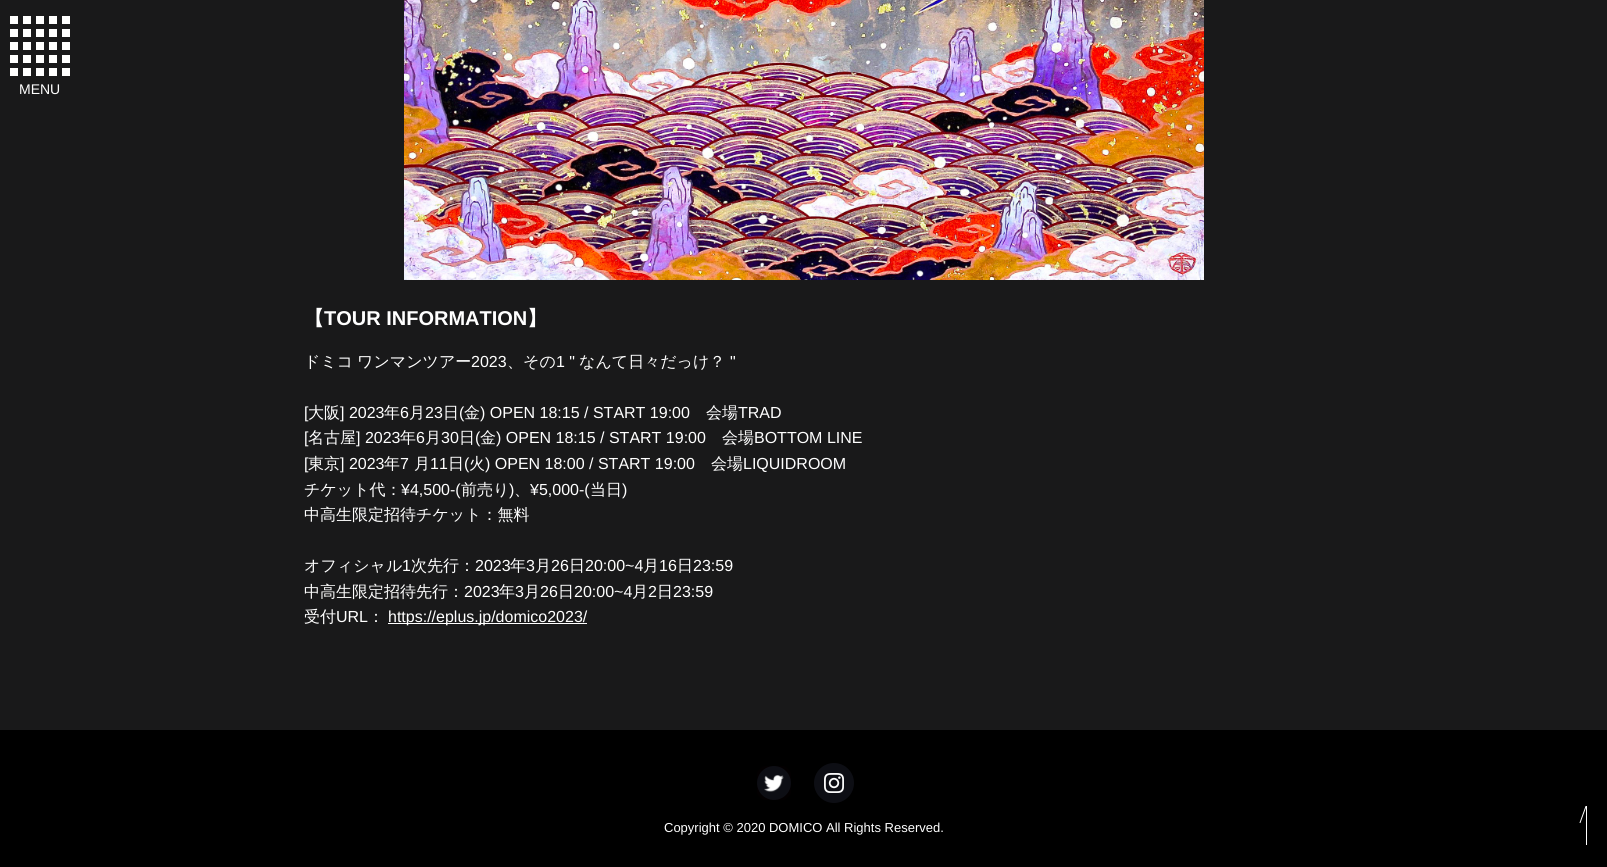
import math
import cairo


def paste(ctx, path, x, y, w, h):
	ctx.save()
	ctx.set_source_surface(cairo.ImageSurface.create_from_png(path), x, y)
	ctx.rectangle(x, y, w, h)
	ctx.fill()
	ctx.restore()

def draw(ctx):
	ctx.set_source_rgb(0.098, 0.098, 0.102)
	ctx.paint()
	ctx.set_source_rgb(1, 1, 1)
	ctx.rectangle(10, 16, 8, 8)
	ctx.rectangle(23, 16, 8, 8)
	ctx.rectangle(36, 16, 8, 8)
	ctx.rectangle(49, 16, 8, 8)
	ctx.rectangle(62, 16, 8, 8)
	ctx.rectangle(10, 29, 8, 8)
	ctx.rectangle(23, 29, 8, 8)
	ctx.rectangle(36, 29, 8, 8)
	ctx.rectangle(49, 29, 8, 8)
	ctx.rectangle(62, 29, 8, 8)
	ctx.rectangle(10, 42, 8, 8)
	ctx.rectangle(23, 42, 8, 8)
	ctx.rectangle(36, 42, 8, 8)
	ctx.rectangle(49, 42, 8, 8)
	ctx.rectangle(62, 42, 8, 8)
	ctx.rectangle(10, 55, 8, 8)
	ctx.rectangle(23, 55, 8, 8)
	ctx.rectangle(36, 55, 8, 8)
	ctx.rectangle(49, 55, 8, 8)
	ctx.rectangle(62, 55, 8, 8)
	ctx.rectangle(10, 68, 8, 8)
	ctx.rectangle(23, 68, 8, 8)
	ctx.rectangle(36, 68, 8, 8)
	ctx.rectangle(49, 68, 8, 8)
	ctx.rectangle(62, 68, 8, 8)
	ctx.fill()
	ctx.select_font_face('Liberation Sans')
	ctx.set_font_size(14)
	ctx.move_to(19, 94)
	ctx.show_text('MENU')
	paste(ctx, 'media/1.png', 404, 0, 800, 280)
	ctx.select_font_face('WenQuanYi Zen Hei', cairo.FONT_SLANT_NORMAL, cairo.FONT_WEIGHT_BOLD)
	ctx.set_font_size(20)
	ctx.move_to(304, 325)
	ctx.show_text('【')
	ctx.select_font_face('Liberation Sans', cairo.FONT_SLANT_NORMAL, cairo.FONT_WEIGHT_BOLD)
	ctx.move_to(324, 325)
	ctx.show_text('TOUR INFORMATION')
	ctx.select_font_face('WenQuanYi Zen Hei', cairo.FONT_SLANT_NORMAL, cairo.FONT_WEIGHT_BOLD)
	ctx.move_to(527, 325)
	ctx.show_text('】')
	ctx.select_font_face('WenQuanYi Zen Hei Medium')
	ctx.set_font_size(16)
	ctx.move_to(304, 367)
	ctx.show_text('ドミコ')
	ctx.move_to(357, 367)
	ctx.show_text('ワンマンツアー')
	ctx.select_font_face('Liberation Sans')
	ctx.move_to(471, 367)
	ctx.show_text('2023')
	ctx.select_font_face('WenQuanYi Zen Hei Medium')
	ctx.move_to(507, 367)
	ctx.show_text('、その')
	ctx.select_font_face('Liberation Sans')
	ctx.move_to(556, 367)
	ctx.show_text('1 "')
	ctx.select_font_face('WenQuanYi Zen Hei Medium')
	ctx.move_to(579, 367)
	ctx.show_text('なんて日々だっけ？')
	ctx.select_font_face('Liberation Sans')
	ctx.move_to(730, 367)
	ctx.show_text('"')
	ctx.move_to(304, 418)
	ctx.show_text('[')
	ctx.select_font_face('WenQuanYi Zen Hei Medium')
	ctx.move_to(308, 418)
	ctx.show_text('大阪')
	ctx.select_font_face('Liberation Sans')
	ctx.move_to(340, 418)
	ctx.show_text('] 2023')
	ctx.select_font_face('WenQuanYi Zen Hei Medium')
	ctx.move_to(384, 418)
	ctx.show_text('年')
	ctx.select_font_face('Liberation Sans')
	ctx.move_to(400, 418)
	ctx.show_text('6')
	ctx.select_font_face('WenQuanYi Zen Hei Medium')
	ctx.move_to(409, 418)
	ctx.show_text('月')
	ctx.select_font_face('Liberation Sans')
	ctx.move_to(425, 418)
	ctx.show_text('23')
	ctx.select_font_face('WenQuanYi Zen Hei Medium')
	ctx.move_to(443, 418)
	ctx.show_text('日')
	ctx.select_font_face('Liberation Sans')
	ctx.move_to(459, 418)
	ctx.show_text('(')
	ctx.select_font_face('WenQuanYi Zen Hei Medium')
	ctx.move_to(464, 418)
	ctx.show_text('金')
	ctx.select_font_face('Liberation Sans')
	ctx.move_to(480, 418)
	ctx.show_text(') OPEN 18:15 / START 19:00')
	ctx.select_font_face('WenQuanYi Zen Hei Medium')
	ctx.move_to(706, 418)
	ctx.show_text('会場')
	ctx.select_font_face('Liberation Sans')
	ctx.move_to(738, 418)
	ctx.show_text('TRAD')
	ctx.move_to(304, 443)
	ctx.show_text('[')
	ctx.select_font_face('WenQuanYi Zen Hei Medium')
	ctx.move_to(308, 443)
	ctx.show_text('名古屋')
	ctx.select_font_face('Liberation Sans')
	ctx.move_to(356, 443)
	ctx.show_text('] 2023')
	ctx.select_font_face('WenQuanYi Zen Hei Medium')
	ctx.move_to(400, 443)
	ctx.show_text('年')
	ctx.select_font_face('Liberation Sans')
	ctx.move_to(416, 443)
	ctx.show_text('6')
	ctx.select_font_face('WenQuanYi Zen Hei Medium')
	ctx.move_to(425, 443)
	ctx.show_text('月')
	ctx.select_font_face('Liberation Sans')
	ctx.move_to(441, 443)
	ctx.show_text('30')
	ctx.select_font_face('WenQuanYi Zen Hei Medium')
	ctx.move_to(459, 443)
	ctx.show_text('日')
	ctx.select_font_face('Liberation Sans')
	ctx.move_to(475, 443)
	ctx.show_text('(')
	ctx.select_font_face('WenQuanYi Zen Hei Medium')
	ctx.move_to(480, 443)
	ctx.show_text('金')
	ctx.select_font_face('Liberation Sans')
	ctx.move_to(496, 443)
	ctx.show_text(') OPEN 18:15 / START 19:00')
	ctx.select_font_face('WenQuanYi Zen Hei Medium')
	ctx.move_to(722, 443)
	ctx.show_text('会場')
	ctx.select_font_face('Liberation Sans')
	ctx.move_to(754, 443)
	ctx.show_text('BOTTOM LINE')
	ctx.move_to(304, 469)
	ctx.show_text('[')
	ctx.select_font_face('WenQuanYi Zen Hei Medium')
	ctx.move_to(308, 469)
	ctx.show_text('東京')
	ctx.select_font_face('Liberation Sans')
	ctx.move_to(340, 469)
	ctx.show_text('] 2023')
	ctx.select_font_face('WenQuanYi Zen Hei Medium')
	ctx.move_to(384, 469)
	ctx.show_text('年')
	ctx.select_font_face('Liberation Sans')
	ctx.move_to(400, 469)
	ctx.show_text('7')
	ctx.select_font_face('WenQuanYi Zen Hei Medium')
	ctx.move_to(414, 469)
	ctx.show_text('月')
	ctx.select_font_face('Liberation Sans')
	ctx.move_to(430, 469)
	ctx.show_text('11')
	ctx.select_font_face('WenQuanYi Zen Hei Medium')
	ctx.move_to(448, 469)
	ctx.show_text('日')
	ctx.select_font_face('Liberation Sans')
	ctx.move_to(464, 469)
	ctx.show_text('(')
	ctx.select_font_face('WenQuanYi Zen Hei Medium')
	ctx.move_to(469, 469)
	ctx.show_text('火')
	ctx.select_font_face('Liberation Sans')
	ctx.move_to(485, 469)
	ctx.show_text(') OPEN 18:00 / START 19:00')
	ctx.select_font_face('WenQuanYi Zen Hei Medium')
	ctx.move_to(711, 469)
	ctx.show_text('会場')
	ctx.select_font_face('Liberation Sans')
	ctx.move_to(743, 469)
	ctx.show_text('LIQUIDROOM')
	ctx.select_font_face('WenQuanYi Zen Hei Medium')
	ctx.move_to(304, 495)
	ctx.show_text('チケット代：')
	ctx.select_font_face('Liberation Sans')
	ctx.move_to(401, 495)
	ctx.show_text('¥4,500-(')
	ctx.select_font_face('WenQuanYi Zen Hei Medium')
	ctx.move_to(461, 495)
	ctx.show_text('前売り')
	ctx.select_font_face('Liberation Sans')
	ctx.move_to(509, 495)
	ctx.show_text(')')
	ctx.select_font_face('WenQuanYi Zen Hei Medium')
	ctx.move_to(514, 495)
	ctx.show_text('、')
	ctx.select_font_face('Liberation Sans')
	ctx.move_to(530, 495)
	ctx.show_text('¥5,000-(')
	ctx.select_font_face('WenQuanYi Zen Hei Medium')
	ctx.move_to(590, 495)
	ctx.show_text('当日')
	ctx.select_font_face('Liberation Sans')
	ctx.move_to(622, 495)
	ctx.show_text(')')
	ctx.select_font_face('WenQuanYi Zen Hei Medium')
	ctx.move_to(304, 520)
	ctx.show_text('中高生限定招待チケット：無料')
	ctx.move_to(304, 571)
	ctx.show_text('オフィシャル')
	ctx.select_font_face('Liberation Sans')
	ctx.move_to(402, 571)
	ctx.show_text('1')
	ctx.select_font_face('WenQuanYi Zen Hei Medium')
	ctx.move_to(411, 571)
	ctx.show_text('次先行：')
	ctx.select_font_face('Liberation Sans')
	ctx.move_to(475, 571)
	ctx.show_text('2023')
	ctx.select_font_face('WenQuanYi Zen Hei Medium')
	ctx.move_to(510, 571)
	ctx.show_text('年')
	ctx.select_font_face('Liberation Sans')
	ctx.move_to(526, 571)
	ctx.show_text('3')
	ctx.select_font_face('WenQuanYi Zen Hei Medium')
	ctx.move_to(535, 571)
	ctx.show_text('月')
	ctx.select_font_face('Liberation Sans')
	ctx.move_to(551, 571)
	ctx.show_text('26')
	ctx.select_font_face('WenQuanYi Zen Hei Medium')
	ctx.move_to(569, 571)
	ctx.show_text('日')
	ctx.select_font_face('Liberation Sans')
	ctx.move_to(585, 571)
	ctx.show_text('20:00~4')
	ctx.select_font_face('WenQuanYi Zen Hei Medium')
	ctx.move_to(643, 571)
	ctx.show_text('月')
	ctx.select_font_face('Liberation Sans')
	ctx.move_to(659, 571)
	ctx.show_text('16')
	ctx.select_font_face('WenQuanYi Zen Hei Medium')
	ctx.move_to(677, 571)
	ctx.show_text('日')
	ctx.select_font_face('Liberation Sans')
	ctx.move_to(693, 571)
	ctx.show_text('23:59')
	ctx.select_font_face('WenQuanYi Zen Hei Medium')
	ctx.move_to(304, 597)
	ctx.show_text('中高生限定招待先行：')
	ctx.select_font_face('Liberation Sans')
	ctx.move_to(464, 597)
	ctx.show_text('2023')
	ctx.select_font_face('WenQuanYi Zen Hei Medium')
	ctx.move_to(499, 597)
	ctx.show_text('年')
	ctx.select_font_face('Liberation Sans')
	ctx.move_to(515, 597)
	ctx.show_text('3')
	ctx.select_font_face('WenQuanYi Zen Hei Medium')
	ctx.move_to(524, 597)
	ctx.show_text('月')
	ctx.select_font_face('Liberation Sans')
	ctx.move_to(540, 597)
	ctx.show_text('26')
	ctx.select_font_face('WenQuanYi Zen Hei Medium')
	ctx.move_to(558, 597)
	ctx.show_text('日')
	ctx.select_font_face('Liberation Sans')
	ctx.move_to(574, 597)
	ctx.show_text('20:00~4')
	ctx.select_font_face('WenQuanYi Zen Hei Medium')
	ctx.move_to(632, 597)
	ctx.show_text('月')
	ctx.select_font_face('Liberation Sans')
	ctx.move_to(648, 597)
	ctx.show_text('2')
	ctx.select_font_face('WenQuanYi Zen Hei Medium')
	ctx.move_to(657, 597)
	ctx.show_text('日')
	ctx.select_font_face('Liberation Sans')
	ctx.move_to(673, 597)
	ctx.show_text('23:59')
	ctx.select_font_face('WenQuanYi Zen Hei Medium')
	ctx.move_to(304, 622)
	ctx.show_text('受付')
	ctx.select_font_face('Liberation Sans')
	ctx.move_to(336, 622)
	ctx.show_text('URL')
	ctx.select_font_face('WenQuanYi Zen Hei Medium')
	ctx.move_to(368, 622)
	ctx.show_text('：')
	ctx.rectangle(388, 623, 199, 1)
	ctx.fill()
	ctx.select_font_face('Liberation Sans')
	ctx.move_to(388, 622)
	ctx.show_text('https://eplus.jp/domico2023/')
	ctx.set_source_rgb(0, 0, 0)
	ctx.rectangle(0, 730, 1607, 137)
	ctx.fill()
	paste(ctx, 'media/2.png', 757, 766, 34, 34)
	paste(ctx, 'media/3.png', 814, 763, 40, 40)
	ctx.set_font_size(13)
	ctx.set_source_rgb(1, 1, 1)
	ctx.move_to(664, 832)
	ctx.show_text('Copyright © 2020 DOMICO All Rights Reserved.')
	paste(ctx, 'media/4.png', 1579, 806, 8, 39)


surface = cairo.ImageSurface(cairo.FORMAT_RGB24, 1607, 867)
ctx = cairo.Context(surface)
options = cairo.FontOptions()
options.set_hint_metrics(cairo.HINT_METRICS_OFF)
options.set_hint_style(cairo.HINT_STYLE_NONE)
ctx.set_font_options(options)
ctx.set_miter_limit(4)
draw(ctx)
surface.write_to_png('image.png')
